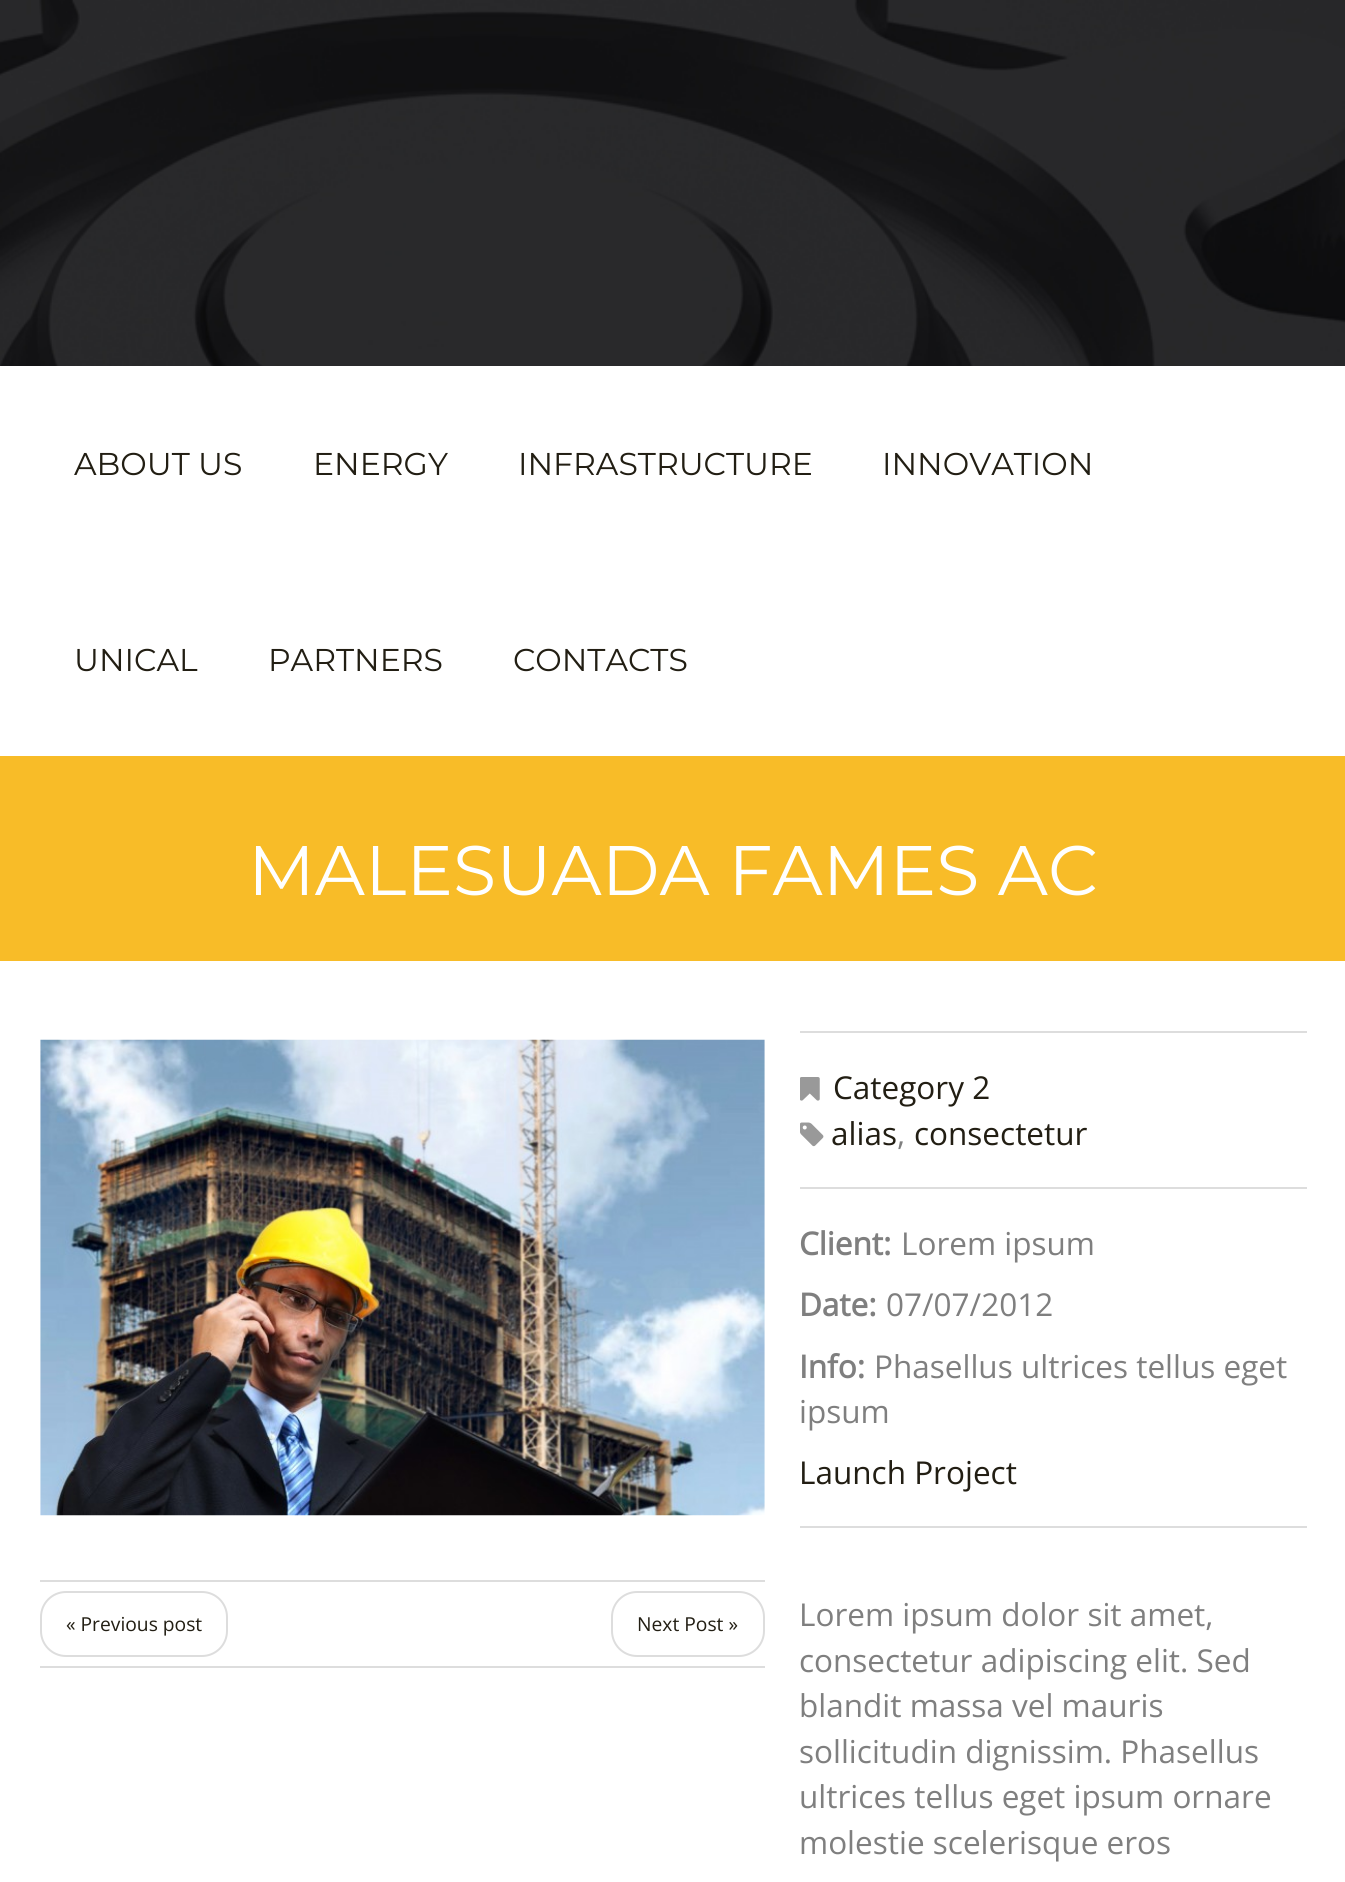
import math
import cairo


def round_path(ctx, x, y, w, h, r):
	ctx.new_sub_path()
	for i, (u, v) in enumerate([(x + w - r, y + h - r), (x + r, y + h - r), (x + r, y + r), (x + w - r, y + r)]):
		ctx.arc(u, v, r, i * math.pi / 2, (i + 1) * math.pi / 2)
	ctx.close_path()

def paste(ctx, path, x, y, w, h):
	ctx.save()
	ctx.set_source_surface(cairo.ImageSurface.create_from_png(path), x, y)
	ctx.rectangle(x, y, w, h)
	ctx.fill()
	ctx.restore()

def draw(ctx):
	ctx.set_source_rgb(1, 1, 1)
	ctx.paint()
	paste(ctx, 'media/1.png', 0, 0, 1345, 366)
	ctx.select_font_face('Montserrat Thin')
	ctx.set_font_size(31.5)
	ctx.set_source_rgb(0.133, 0.118, 0.078)
	for x, y, s in [
		(74, 475, 'ABOUT US'),
		(313, 475, 'ENERGY'),
		(518, 475, 'INFRASTRUCTURE'),
		(882, 475, 'INNOVATION'),
		(74, 671, 'UNICAL'),
		(268, 671, 'PARTNERS'),
		(513, 671, 'CONTACTS'),
	]:
		ctx.move_to(x, y)
		ctx.show_text(s)
	ctx.set_source_rgb(0.969, 0.737, 0.157)
	ctx.rectangle(0, 756, 40, 205)
	ctx.fill()
	ctx.rectangle(40, 756, 1305, 205)
	ctx.fill()
	ctx.set_font_size(70)
	ctx.set_source_rgb(1, 1, 1)
	ctx.move_to(248, 895)
	ctx.show_text('MALESUADA FAMES AC')
	paste(ctx, 'media/2.png', 40, 1039, 725, 477)
	ctx.set_source_rgb(0.867, 0.867, 0.867)
	ctx.rectangle(40, 1580, 725, 2)
	ctx.fill()
	ctx.rectangle(40, 1666, 725, 2)
	ctx.fill()
	round_path(ctx, 41, 1592, 186, 64, 25)
	ctx.stroke()
	ctx.select_font_face('Open Sans')
	ctx.set_font_size(19.25)
	ctx.set_source_rgb(0.133, 0.118, 0.078)
	ctx.move_to(66, 1631)
	ctx.show_text('« Previous post')
	round_path(ctx, 612, 1592, 152, 64, 25)
	ctx.set_source_rgb(0.867, 0.867, 0.867)
	ctx.stroke()
	ctx.set_source_rgb(0.133, 0.118, 0.078)
	ctx.move_to(637, 1631)
	ctx.show_text('Next Post »')
	ctx.set_source_rgb(0.867, 0.867, 0.867)
	ctx.rectangle(800, 1031, 507, 2)
	ctx.fill()
	paste(ctx, 'media/3.png', 800, 1077, 20, 24)
	ctx.set_font_size(31.5)
	ctx.set_source_rgb(0.133, 0.118, 0.078)
	ctx.move_to(833, 1099)
	ctx.show_text('Category 2')
	paste(ctx, 'media/4.png', 800, 1122, 24, 25)
	ctx.move_to(831, 1145)
	ctx.show_text('alias')
	ctx.set_source_rgb(0.498, 0.498, 0.498)
	ctx.move_to(897, 1145)
	ctx.show_text(',')
	ctx.set_source_rgb(0.133, 0.118, 0.078)
	ctx.move_to(914, 1145)
	ctx.show_text('consectetur')
	ctx.set_source_rgb(0.867, 0.867, 0.867)
	ctx.rectangle(800, 1187, 507, 2)
	ctx.fill()
	ctx.rectangle(800, 1526, 507, 2)
	ctx.fill()
	ctx.select_font_face('Open Sans', cairo.FONT_SLANT_NORMAL, cairo.FONT_WEIGHT_BOLD)
	ctx.set_source_rgb(0.498, 0.498, 0.498)
	ctx.move_to(799, 1255)
	ctx.show_text('Client:')
	ctx.select_font_face('Open Sans')
	ctx.move_to(901, 1255)
	ctx.show_text('Lorem ipsum')
	ctx.select_font_face('Open Sans', cairo.FONT_SLANT_NORMAL, cairo.FONT_WEIGHT_BOLD)
	ctx.move_to(799, 1316)
	ctx.show_text('Date:')
	ctx.select_font_face('Open Sans')
	ctx.move_to(886, 1316)
	ctx.show_text('07/07/2012')
	ctx.select_font_face('Open Sans', cairo.FONT_SLANT_NORMAL, cairo.FONT_WEIGHT_BOLD)
	ctx.move_to(799, 1378)
	ctx.show_text('Info:')
	ctx.select_font_face('Open Sans')
	ctx.move_to(874, 1378)
	ctx.show_text('Phasellus ultrices tellus eget')
	ctx.move_to(799, 1423)
	ctx.show_text('ipsum')
	ctx.set_source_rgb(0.133, 0.118, 0.078)
	ctx.move_to(799, 1484)
	ctx.show_text('Launch Project')
	ctx.set_source_rgb(0.498, 0.498, 0.498)
	for x, y, s in [
		(799, 1626, 'Lorem ipsum dolor sit amet,'),
		(799, 1672, 'consectetur adipiscing elit. Sed'),
		(799, 1717, 'blandit massa vel mauris'),
		(799, 1763, 'sollicitudin dignissim. Phasellus'),
		(799, 1808, 'ultrices tellus eget ipsum ornare'),
		(799, 1854, 'molestie scelerisque eros'),
	]:
		ctx.move_to(x, y)
		ctx.show_text(s)


surface = cairo.ImageSurface(cairo.FORMAT_RGB24, 1345, 1882)
ctx = cairo.Context(surface)
options = cairo.FontOptions()
options.set_hint_metrics(cairo.HINT_METRICS_OFF)
options.set_hint_style(cairo.HINT_STYLE_NONE)
ctx.set_font_options(options)
ctx.set_miter_limit(4)
draw(ctx)
surface.write_to_png('image.png')
